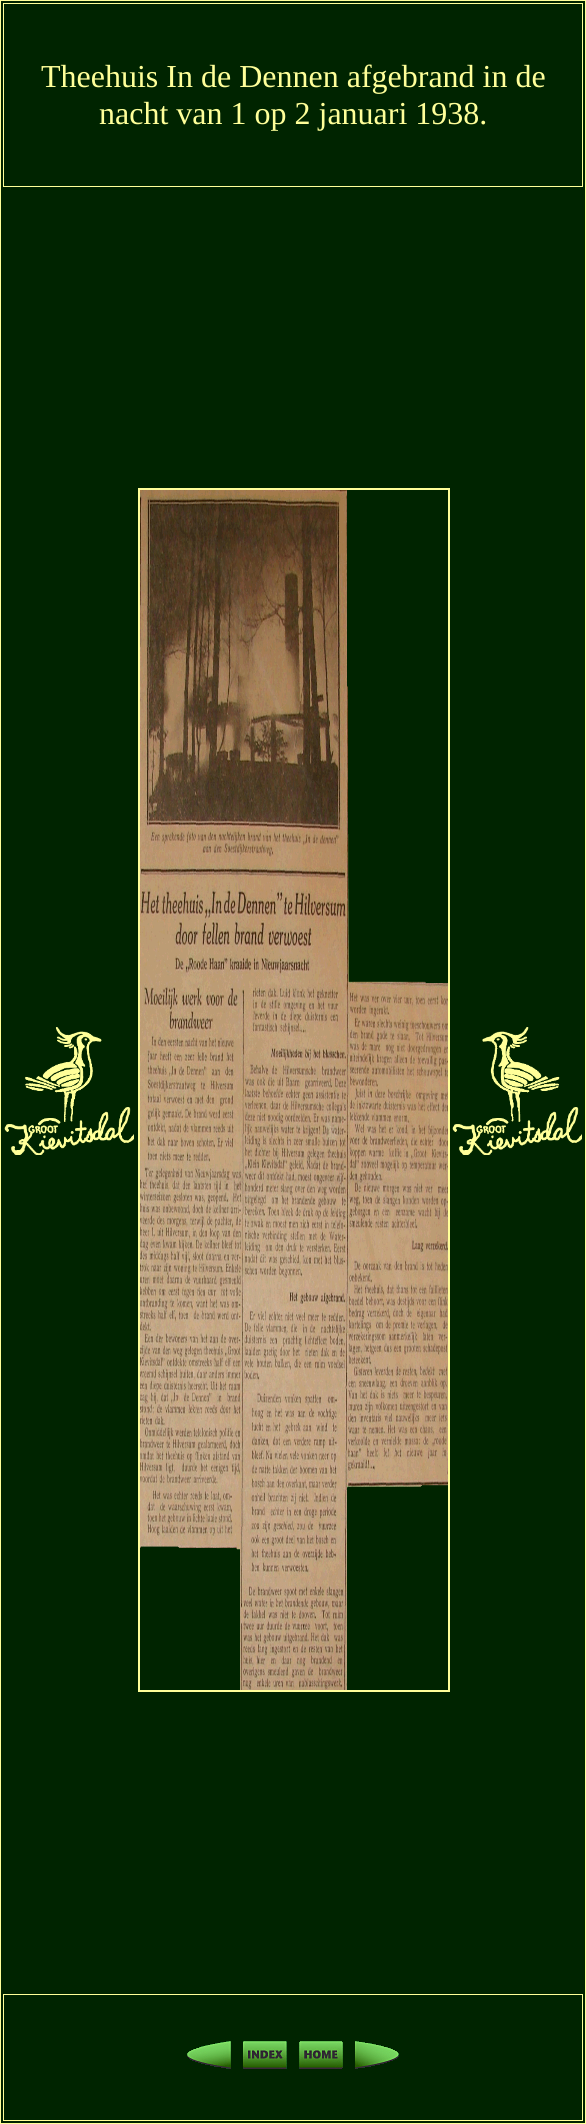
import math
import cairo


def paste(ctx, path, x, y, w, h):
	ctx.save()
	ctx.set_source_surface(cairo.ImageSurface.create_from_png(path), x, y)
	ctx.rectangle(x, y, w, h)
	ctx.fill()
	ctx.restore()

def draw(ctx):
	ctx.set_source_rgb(0, 0.141, 0)
	ctx.paint()
	ctx.rectangle(0.5, 0.5, 585, 2123)
	ctx.set_source_rgb(1, 1, 0.6)
	ctx.set_line_width(1)
	ctx.stroke()
	ctx.rectangle(3.5, 3.5, 579, 183)
	ctx.stroke()
	ctx.select_font_face('Liberation Serif')
	ctx.set_font_size(32)
	ctx.move_to(41, 87)
	ctx.show_text('Theehuis In de Dennen afgebrand in de')
	ctx.move_to(99, 124)
	ctx.show_text('nacht van 1 op 2 januari 1938.')
	paste(ctx, 'media/1.png', 4, 1027, 130, 128)
	ctx.rectangle(139, 489, 310, 1202)
	ctx.set_line_width(2)
	ctx.stroke()
	paste(ctx, 'media/2.png', 140, 490, 308, 1200)
	paste(ctx, 'media/3.png', 452, 1027, 130, 128)
	ctx.rectangle(3.5, 1994.5, 579, 126)
	ctx.set_line_width(1)
	ctx.stroke()
	paste(ctx, 'media/4.png', 187, 2041, 44, 28)
	paste(ctx, 'media/5.png', 243, 2041, 44, 28)
	paste(ctx, 'media/6.png', 299, 2041, 44, 28)
	paste(ctx, 'media/7.png', 355, 2041, 44, 28)


surface = cairo.ImageSurface(cairo.FORMAT_RGB24, 586, 2124)
ctx = cairo.Context(surface)
options = cairo.FontOptions()
options.set_hint_metrics(cairo.HINT_METRICS_OFF)
options.set_hint_style(cairo.HINT_STYLE_NONE)
ctx.set_font_options(options)
ctx.set_miter_limit(4)
draw(ctx)
surface.write_to_png('image.png')
